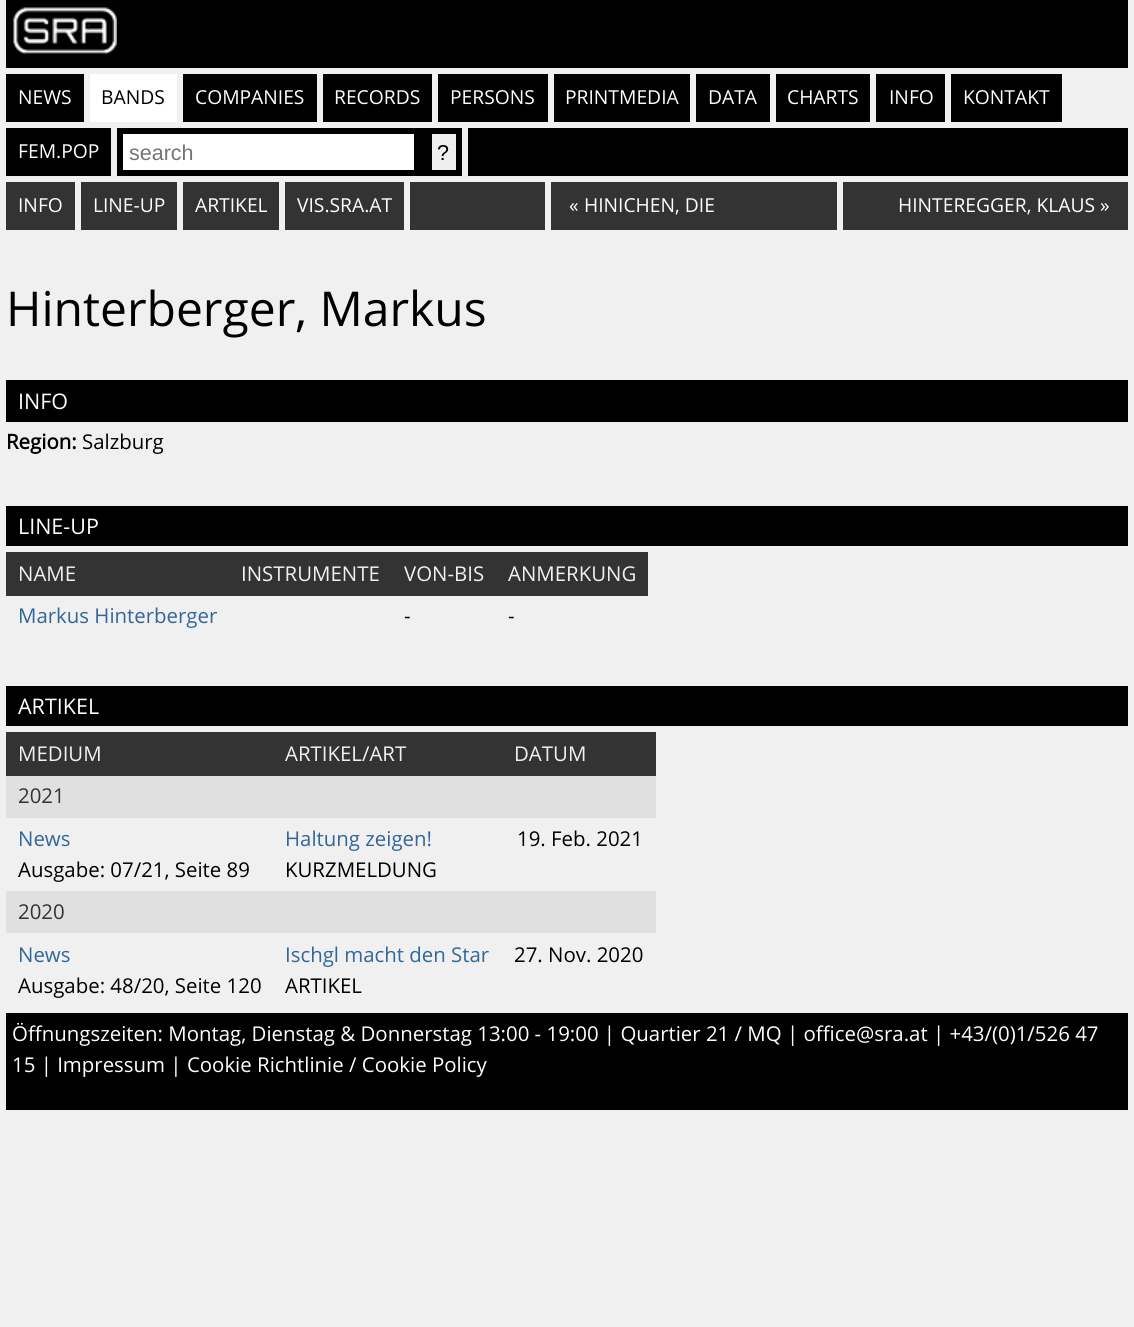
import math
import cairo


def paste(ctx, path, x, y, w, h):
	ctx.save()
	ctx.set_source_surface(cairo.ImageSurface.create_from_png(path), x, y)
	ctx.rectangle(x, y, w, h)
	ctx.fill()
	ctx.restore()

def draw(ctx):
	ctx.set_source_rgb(0.941, 0.941, 0.941)
	ctx.paint()
	ctx.set_source_rgb(0, 0, 0)
	ctx.rectangle(6, 0, 1122, 68)
	ctx.fill()
	paste(ctx, 'media/1.png', 12, 7, 105, 47)
	ctx.rectangle(6, 74, 78, 48)
	ctx.fill()
	ctx.select_font_face('Open Sans')
	ctx.set_font_size(19.25)
	ctx.set_source_rgb(1, 1, 1)
	ctx.move_to(18, 104)
	ctx.show_text('NEWS')
	ctx.rectangle(90, 74, 87, 48)
	ctx.fill()
	ctx.set_source_rgb(0, 0, 0)
	ctx.move_to(101, 104)
	ctx.show_text('BANDS')
	ctx.rectangle(183, 74, 134, 48)
	ctx.fill()
	ctx.set_source_rgb(1, 1, 1)
	ctx.move_to(195, 104)
	ctx.show_text('COMPANIES')
	ctx.set_source_rgb(0, 0, 0)
	ctx.rectangle(323, 74, 109, 48)
	ctx.fill()
	ctx.set_source_rgb(1, 1, 1)
	ctx.move_to(334, 104)
	ctx.show_text('RECORDS')
	ctx.set_source_rgb(0, 0, 0)
	ctx.rectangle(438, 74, 110, 48)
	ctx.fill()
	ctx.set_source_rgb(1, 1, 1)
	ctx.move_to(450, 104)
	ctx.show_text('PERSONS')
	ctx.set_source_rgb(0, 0, 0)
	ctx.rectangle(554, 74, 136, 48)
	ctx.fill()
	ctx.set_source_rgb(1, 1, 1)
	ctx.move_to(565, 104)
	ctx.show_text('PRINTMEDIA')
	ctx.set_source_rgb(0, 0, 0)
	ctx.rectangle(696, 74, 74, 48)
	ctx.fill()
	ctx.set_source_rgb(1, 1, 1)
	ctx.move_to(708, 104)
	ctx.show_text('DATA')
	ctx.set_source_rgb(0, 0, 0)
	ctx.rectangle(776, 74, 94, 48)
	ctx.fill()
	ctx.set_source_rgb(1, 1, 1)
	ctx.move_to(787, 104)
	ctx.show_text('CHARTS')
	ctx.set_source_rgb(0, 0, 0)
	ctx.rectangle(876, 74, 69, 48)
	ctx.fill()
	ctx.set_source_rgb(1, 1, 1)
	ctx.move_to(889, 104)
	ctx.show_text('INFO')
	ctx.set_source_rgb(0, 0, 0)
	ctx.rectangle(951, 74, 111, 48)
	ctx.fill()
	ctx.set_source_rgb(1, 1, 1)
	ctx.move_to(963, 104)
	ctx.show_text('KONTAKT')
	ctx.set_source_rgb(0, 0, 0)
	ctx.rectangle(6, 128, 105, 48)
	ctx.fill()
	ctx.set_source_rgb(1, 1, 1)
	ctx.move_to(18, 158)
	ctx.show_text('FEM.POP')
	ctx.set_source_rgb(0, 0, 0)
	ctx.rectangle(117, 128, 345, 48)
	ctx.fill()
	ctx.set_source_rgb(1, 1, 1)
	ctx.rectangle(123, 134, 291, 36)
	ctx.fill()
	ctx.select_font_face('Liberation Sans')
	ctx.set_font_size(21.5)
	ctx.set_source_rgb(0.459, 0.459, 0.459)
	ctx.move_to(129, 160)
	ctx.show_text('search')
	ctx.set_source_rgb(0.937, 0.937, 0.937)
	ctx.rectangle(432, 134, 24, 36)
	ctx.fill()
	ctx.set_source_rgb(0, 0, 0)
	ctx.move_to(437, 160)
	ctx.show_text('?')
	ctx.rectangle(468, 128, 660, 48)
	ctx.fill()
	ctx.set_source_rgb(0.2, 0.2, 0.2)
	ctx.rectangle(6, 182, 69, 48)
	ctx.fill()
	ctx.select_font_face('Open Sans')
	ctx.set_font_size(19.25)
	ctx.set_source_rgb(1, 1, 1)
	ctx.move_to(18, 212)
	ctx.show_text('INFO')
	ctx.set_source_rgb(0.2, 0.2, 0.2)
	ctx.rectangle(81, 182, 96, 48)
	ctx.fill()
	ctx.set_source_rgb(1, 1, 1)
	ctx.move_to(93, 212)
	ctx.show_text('LINE-UP')
	ctx.set_source_rgb(0.2, 0.2, 0.2)
	ctx.rectangle(183, 182, 96, 48)
	ctx.fill()
	ctx.set_source_rgb(1, 1, 1)
	ctx.move_to(195, 212)
	ctx.show_text('ARTIKEL')
	ctx.set_source_rgb(0.2, 0.2, 0.2)
	ctx.rectangle(285, 182, 119, 48)
	ctx.fill()
	ctx.set_source_rgb(1, 1, 1)
	ctx.move_to(297, 212)
	ctx.show_text('VIS.SRA.AT')
	ctx.set_source_rgb(0.2, 0.2, 0.2)
	ctx.rectangle(410, 182, 135, 48)
	ctx.fill()
	ctx.rectangle(551, 182, 286, 48)
	ctx.fill()
	ctx.set_source_rgb(1, 1, 1)
	ctx.move_to(569, 212)
	ctx.show_text('«')
	ctx.move_to(584, 212)
	ctx.show_text('HINICHEN, DIE')
	ctx.set_source_rgb(0.2, 0.2, 0.2)
	ctx.rectangle(843, 182, 285, 48)
	ctx.fill()
	ctx.set_source_rgb(1, 1, 1)
	ctx.move_to(898, 212)
	ctx.show_text('HINTEREGGER, KLAUS')
	ctx.move_to(1100, 212)
	ctx.show_text('»')
	ctx.set_font_size(48)
	ctx.set_source_rgb(0, 0, 0)
	ctx.move_to(6, 326)
	ctx.show_text('Hinterberger, Markus')
	ctx.rectangle(6, 380, 1122, 42)
	ctx.fill()
	ctx.set_font_size(21.5)
	ctx.set_source_rgb(1, 1, 1)
	ctx.move_to(18, 409)
	ctx.show_text('INFO')
	ctx.select_font_face('Open Sans', cairo.FONT_SLANT_NORMAL, cairo.FONT_WEIGHT_BOLD)
	ctx.set_font_size(20.4)
	ctx.set_source_rgb(0, 0, 0)
	ctx.move_to(6, 449)
	ctx.show_text('Region:')
	ctx.select_font_face('Open Sans')
	ctx.move_to(82, 449)
	ctx.show_text('Salzburg')
	ctx.rectangle(6, 506, 1122, 40)
	ctx.fill()
	ctx.set_font_size(21.5)
	ctx.set_source_rgb(1, 1, 1)
	ctx.move_to(18, 534)
	ctx.show_text('LINE-UP')
	ctx.set_source_rgb(0.2, 0.2, 0.2)
	ctx.rectangle(6, 552, 642, 44)
	ctx.fill()
	ctx.set_font_size(20.4)
	ctx.set_source_rgb(0.941, 0.941, 0.941)
	for x, y, s in [
		(18, 581, 'NAME'),
		(241, 581, 'INSTRUMENTE'),
		(404, 581, 'VON-BIS'),
		(508, 581, 'ANMERKUNG'),
	]:
		ctx.move_to(x, y)
		ctx.show_text(s)
	ctx.set_source_rgb(0.2, 0.4, 0.6)
	ctx.move_to(18, 623)
	ctx.show_text('Markus Hinterberger')
	ctx.set_source_rgb(0, 0, 0)
	ctx.move_to(404, 623)
	ctx.show_text('-')
	ctx.move_to(508, 623)
	ctx.show_text('-')
	ctx.rectangle(6, 686, 1122, 40)
	ctx.fill()
	ctx.set_font_size(21.5)
	ctx.set_source_rgb(1, 1, 1)
	ctx.move_to(18, 714)
	ctx.show_text('ARTIKEL')
	ctx.set_source_rgb(0.2, 0.2, 0.2)
	ctx.rectangle(6, 732, 650, 44)
	ctx.fill()
	ctx.set_font_size(20.4)
	ctx.set_source_rgb(0.941, 0.941, 0.941)
	for x, y, s in [
		(18, 761, 'MEDIUM'),
		(285, 761, 'ARTIKEL/ART'),
		(514, 761, 'DATUM'),
	]:
		ctx.move_to(x, y)
		ctx.show_text(s)
	ctx.set_source_rgb(0.878, 0.878, 0.878)
	ctx.rectangle(6, 776, 650, 42)
	ctx.fill()
	ctx.set_source_rgb(0.2, 0.2, 0.2)
	ctx.move_to(18, 803)
	ctx.show_text('2021')
	ctx.set_source_rgb(0.2, 0.4, 0.6)
	ctx.move_to(18, 846)
	ctx.show_text('News')
	ctx.set_source_rgb(0, 0, 0)
	ctx.move_to(18, 877)
	ctx.show_text('Ausgabe: 07/21, Seite 89')
	ctx.set_source_rgb(0.2, 0.4, 0.6)
	ctx.move_to(285, 846)
	ctx.show_text('Haltung zeigen!')
	ctx.set_source_rgb(0, 0, 0)
	ctx.move_to(285, 877)
	ctx.show_text('KURZMELDUNG')
	ctx.move_to(517, 846)
	ctx.show_text('19. Feb. 2021')
	ctx.set_source_rgb(0.878, 0.878, 0.878)
	ctx.rectangle(6, 891, 650, 42)
	ctx.fill()
	ctx.set_source_rgb(0.2, 0.2, 0.2)
	ctx.move_to(18, 919)
	ctx.show_text('2020')
	ctx.set_source_rgb(0.2, 0.4, 0.6)
	ctx.move_to(18, 962)
	ctx.show_text('News')
	ctx.set_source_rgb(0, 0, 0)
	ctx.move_to(18, 993)
	ctx.show_text('Ausgabe: 48/20, Seite 120')
	ctx.set_source_rgb(0.2, 0.4, 0.6)
	ctx.move_to(285, 962)
	ctx.show_text('Ischgl macht den Star')
	ctx.set_source_rgb(0, 0, 0)
	ctx.move_to(285, 993)
	ctx.show_text('ARTIKEL')
	ctx.move_to(514, 962)
	ctx.show_text('27. Nov. 2020')
	ctx.rectangle(6, 1013, 1122, 97)
	ctx.fill()
	ctx.set_source_rgb(1, 1, 1)
	ctx.move_to(12, 1041)
	ctx.show_text('Öffnungszeiten: Montag, Dienstag & Donnerstag 13:00 - 19:00 | Quartier 21 / MQ | office@sra.at | +43/(0)1/526 47')
	ctx.move_to(12, 1072)
	ctx.show_text('15 | Impressum | Cookie Richtlinie / Cookie Policy')


surface = cairo.ImageSurface(cairo.FORMAT_RGB24, 1134, 1327)
ctx = cairo.Context(surface)
options = cairo.FontOptions()
options.set_hint_metrics(cairo.HINT_METRICS_OFF)
options.set_hint_style(cairo.HINT_STYLE_NONE)
ctx.set_font_options(options)
ctx.set_miter_limit(4)
draw(ctx)
surface.write_to_png('image.png')
